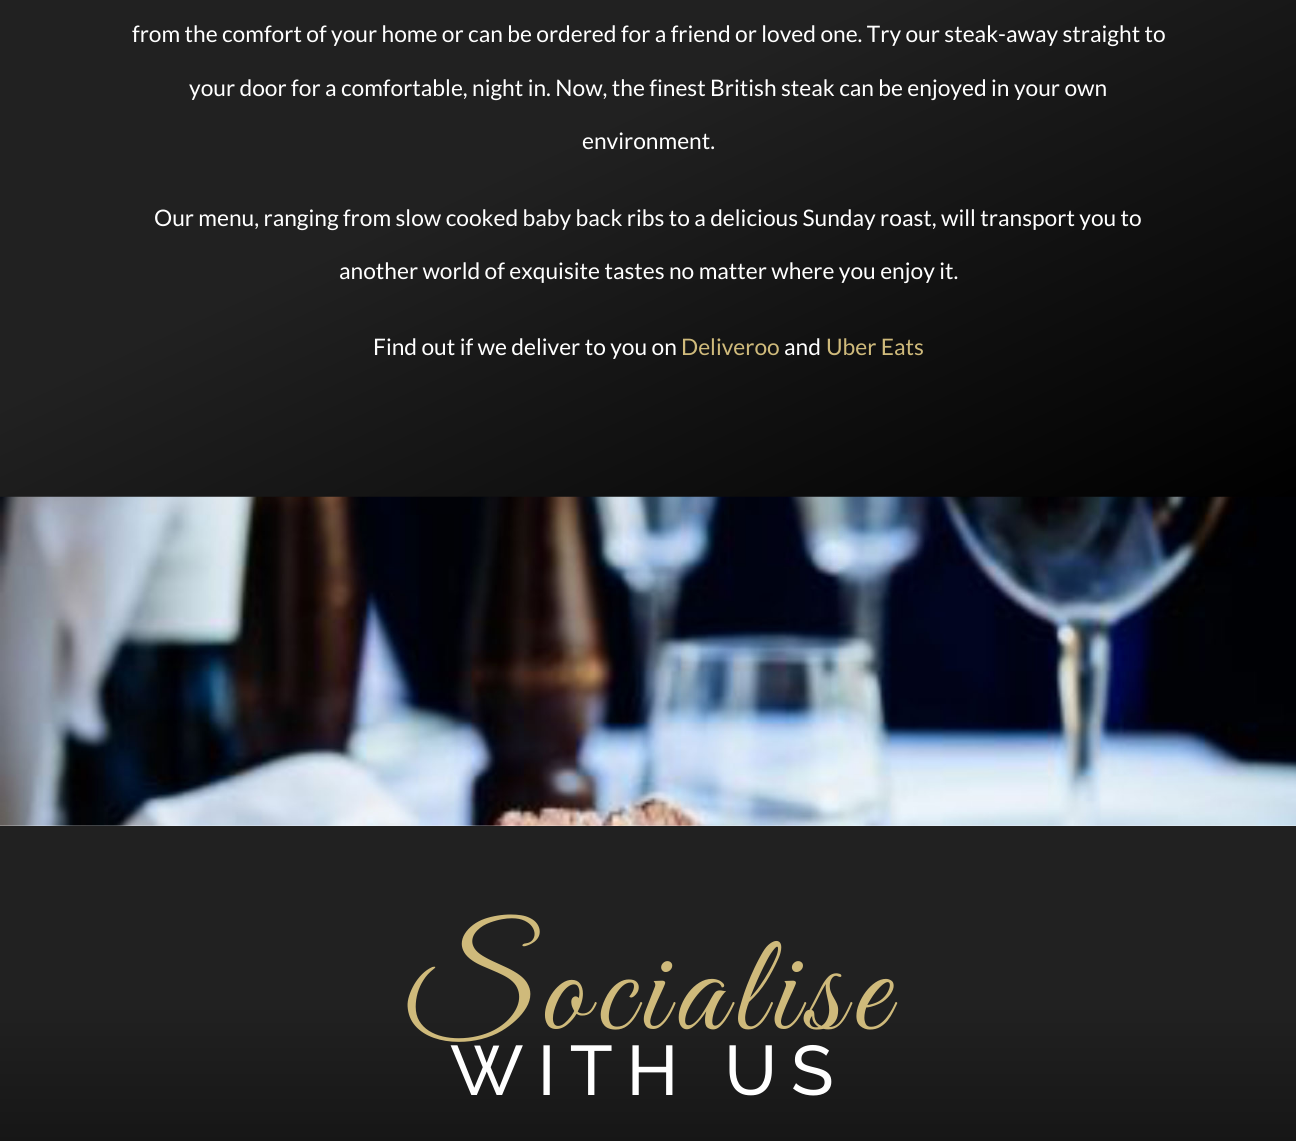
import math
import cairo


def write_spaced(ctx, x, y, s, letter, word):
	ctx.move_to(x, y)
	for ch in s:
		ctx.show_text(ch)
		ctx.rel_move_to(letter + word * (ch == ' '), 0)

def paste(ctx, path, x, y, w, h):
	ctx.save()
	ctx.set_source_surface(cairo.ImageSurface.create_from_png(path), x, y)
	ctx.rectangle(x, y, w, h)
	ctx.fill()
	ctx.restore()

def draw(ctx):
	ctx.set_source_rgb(1, 1, 1)
	ctx.paint()
	gradient = cairo.LinearGradient(346, -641, 951, 658)
	gradient.add_color_stop_rgba(0.56, 0.129, 0.129, 0.129, 1)
	gradient.add_color_stop_rgba(1, 0, 0, 0, 1)
	ctx.set_source(gradient)
	ctx.rectangle(0, 0, 1296, 497)
	ctx.fill()
	ctx.select_font_face('Lato')
	ctx.set_font_size(22.75)
	ctx.set_source_rgb(1, 1, 1)
	for x, y, s in [
		(132, 42, 'from the comfort of your home or can be ordered for a friend or loved one. Try our steak-away straight to'),
		(189, 96, 'your door for a comfortable, night in. Now, the finest British steak can be enjoyed in your own'),
		(582, 149, 'environment.'),
		(154, 226, 'Our menu, ranging from slow cooked baby back ribs to a delicious Sunday roast, will transport you to'),
		(339, 279, 'another world of exquisite tastes no matter where you enjoy it.'),
		(373, 355, 'Find out if we deliver to you on'),
	]:
		ctx.move_to(x, y)
		ctx.show_text(s)
	ctx.set_source_rgb(0.812, 0.729, 0.482)
	ctx.move_to(681, 355)
	ctx.show_text('Deliveroo')
	ctx.set_source_rgb(1, 1, 1)
	ctx.move_to(784, 355)
	ctx.show_text('and')
	ctx.set_source_rgb(0.812, 0.729, 0.482)
	ctx.move_to(826, 355)
	ctx.show_text('Uber Eats')
	paste(ctx, 'media/1.png', 0, 496, 1296, 330)
	gradient = cairo.LinearGradient(648, 826, 648, 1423)
	gradient.add_color_stop_rgba(0.3, 0.129, 0.129, 0.129, 1)
	gradient.add_color_stop_rgba(1, 0, 0, 0, 1)
	ctx.set_source(gradient)
	ctx.rectangle(0, 826, 1296, 315)
	ctx.fill()
	ctx.select_font_face('Great Vibes')
	ctx.set_font_size(140)
	ctx.set_source_rgb(0.812, 0.729, 0.482)
	write_spaced(ctx, 401, 1029, 'Socialise', 8.75, 0)
	ctx.select_font_face('Raleway Thin')
	ctx.set_font_size(70)
	ctx.set_source_rgb(1, 1, 1)
	write_spaced(ctx, 450, 1095, 'WITH US', 14, 0)


surface = cairo.ImageSurface(cairo.FORMAT_RGB24, 1296, 1141)
ctx = cairo.Context(surface)
options = cairo.FontOptions()
options.set_hint_metrics(cairo.HINT_METRICS_OFF)
options.set_hint_style(cairo.HINT_STYLE_NONE)
ctx.set_font_options(options)
ctx.set_miter_limit(4)
draw(ctx)
surface.write_to_png('image.png')
